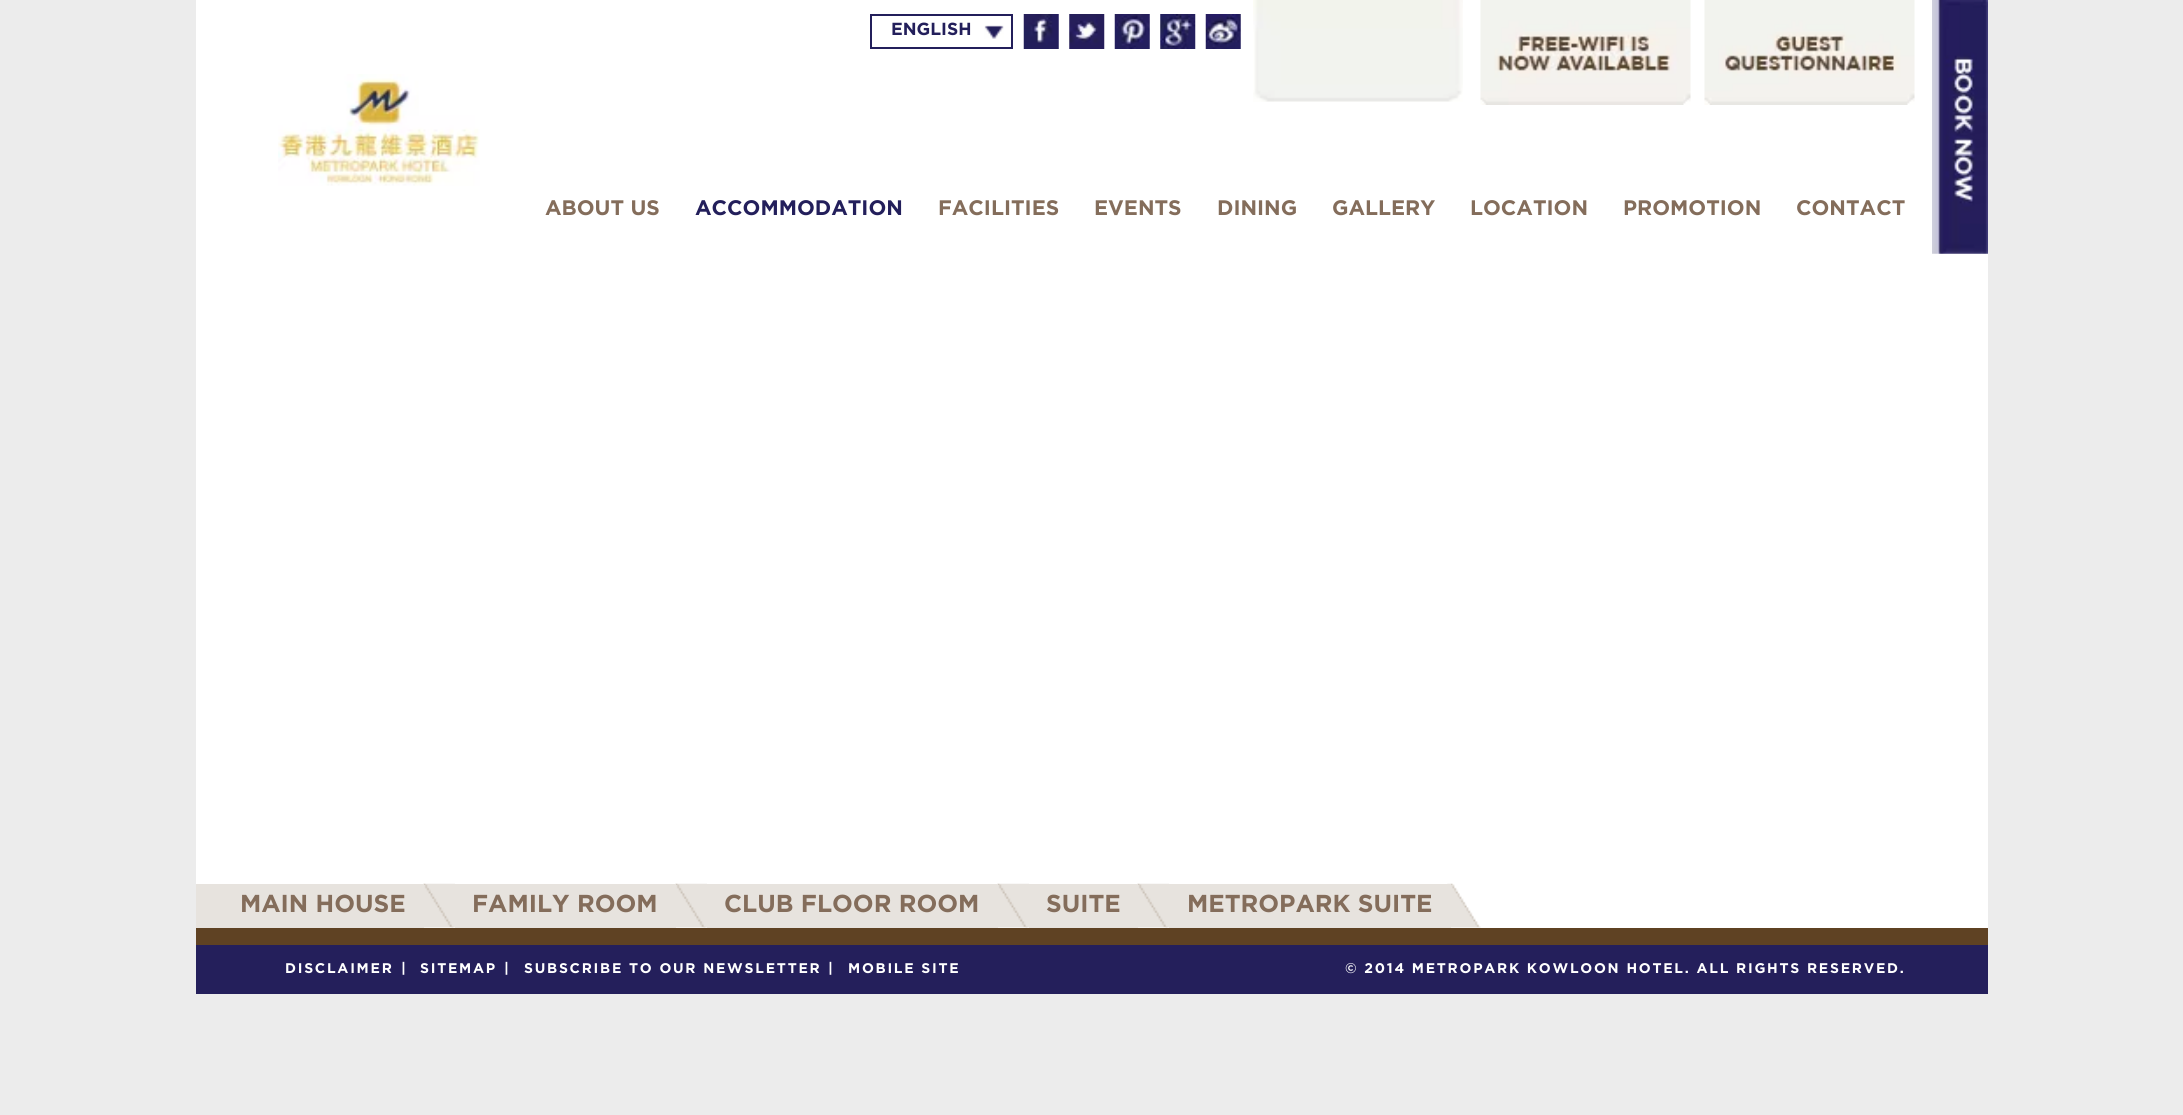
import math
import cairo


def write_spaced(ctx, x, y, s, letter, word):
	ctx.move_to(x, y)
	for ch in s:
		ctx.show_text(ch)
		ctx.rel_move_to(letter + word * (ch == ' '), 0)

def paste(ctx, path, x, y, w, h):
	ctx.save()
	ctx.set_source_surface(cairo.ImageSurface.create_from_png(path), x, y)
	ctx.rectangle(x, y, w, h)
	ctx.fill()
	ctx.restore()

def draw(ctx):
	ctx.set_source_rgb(0.925, 0.925, 0.925)
	ctx.paint()
	ctx.set_source_rgb(1, 1, 1)
	ctx.rectangle(196, 0, 1792, 928)
	ctx.fill()
	paste(ctx, 'media/1.png', 1253, 0, 210, 102)
	paste(ctx, 'media/2.png', 1480, 0, 211, 105)
	paste(ctx, 'media/3.png', 1704, 0, 211, 105)
	paste(ctx, 'media/4.png', 1932, 0, 56, 254)
	paste(ctx, 'media/5.png', 278, 74, 202, 112)
	paste(ctx, 'media/6.png', 984, 25, 20, 14)
	ctx.rectangle(871, 15, 141, 33)
	ctx.set_source_rgb(0.137, 0.122, 0.357)
	ctx.stroke()
	ctx.select_font_face('Gotham', cairo.FONT_SLANT_NORMAL, cairo.FONT_WEIGHT_BOLD)
	ctx.set_font_size(17.5)
	ctx.move_to(891, 35)
	ctx.show_text('ENGLISH')
	paste(ctx, 'media/7.png', 1023, 14, 36, 35)
	paste(ctx, 'media/8.png', 1069, 14, 36, 35)
	paste(ctx, 'media/9.png', 1114, 14, 36, 35)
	paste(ctx, 'media/10.png', 1160, 14, 36, 35)
	paste(ctx, 'media/11.png', 1205, 14, 36, 35)
	ctx.set_font_size(21)
	ctx.set_source_rgb(0.518, 0.427, 0.357)
	ctx.move_to(545, 215)
	ctx.show_text('ABOUT US')
	ctx.set_source_rgb(0.137, 0.122, 0.357)
	ctx.move_to(695, 215)
	ctx.show_text('ACCOMMODATION')
	ctx.set_source_rgb(0.518, 0.427, 0.357)
	for x, y, s in [
		(938, 215, 'FACILITIES'),
		(1094, 215, 'EVENTS'),
		(1217, 215, 'DINING'),
		(1332, 215, 'GALLERY'),
		(1470, 215, 'LOCATION'),
		(1623, 215, 'PROMOTION'),
		(1796, 215, 'CONTACT'),
	]:
		ctx.move_to(x, y)
		ctx.show_text(s)
	ctx.set_source_rgb(0.373, 0.259, 0.137)
	ctx.rectangle(196, 928, 1792, 17)
	ctx.fill()
	paste(ctx, 'media/12.png', 423, 883, 32, 45)
	ctx.set_source_rgb(0.906, 0.89, 0.871)
	ctx.rectangle(196, 884, 228, 44)
	ctx.fill()
	ctx.set_font_size(24.5)
	ctx.set_source_rgb(0.518, 0.427, 0.357)
	ctx.move_to(240, 912)
	ctx.show_text('MAIN HOUSE')
	paste(ctx, 'media/13.png', 675, 883, 32, 45)
	ctx.set_source_rgb(0.906, 0.89, 0.871)
	ctx.rectangle(455, 884, 221, 44)
	ctx.fill()
	ctx.set_source_rgb(0.518, 0.427, 0.357)
	ctx.move_to(472, 912)
	ctx.show_text('FAMILY ROOM')
	paste(ctx, 'media/14.png', 997, 883, 32, 45)
	ctx.set_source_rgb(0.906, 0.89, 0.871)
	ctx.rectangle(707, 884, 291, 44)
	ctx.fill()
	ctx.set_source_rgb(0.518, 0.427, 0.357)
	ctx.move_to(724, 912)
	ctx.show_text('CLUB FLOOR ROOM')
	paste(ctx, 'media/12.png', 1137, 883, 32, 45)
	ctx.set_source_rgb(0.906, 0.89, 0.871)
	ctx.rectangle(1029, 884, 109, 44)
	ctx.fill()
	ctx.set_source_rgb(0.518, 0.427, 0.357)
	ctx.move_to(1046, 912)
	ctx.show_text('SUITE')
	paste(ctx, 'media/15.png', 1447, 883, 34, 45)
	ctx.set_source_rgb(0.906, 0.89, 0.871)
	ctx.rectangle(1169, 884, 282, 44)
	ctx.fill()
	ctx.set_source_rgb(0.518, 0.427, 0.357)
	ctx.move_to(1187, 912)
	ctx.show_text('METROPARK SUITE')
	ctx.set_source_rgb(0.141, 0.122, 0.357)
	ctx.rectangle(196, 945, 1792, 49)
	ctx.fill()
	ctx.set_font_size(14)
	ctx.set_source_rgb(1, 1, 1)
	for x, y, s in [
		(285, 973, 'DISCLAIMER'),
		(401, 973, '|'),
		(420, 973, 'SITEMAP'),
		(504, 973, '|'),
		(524, 973, 'SUBSCRIBE TO OUR NEWSLETTER'),
		(828, 973, '|'),
		(848, 973, 'MOBILE SITE'),
		(1345, 973, '© 2014 METROPARK KOWLOON HOTEL. ALL RIGHTS RESERVED.'),
	]:
		write_spaced(ctx, x, y, s, 1.75, 0)


surface = cairo.ImageSurface(cairo.FORMAT_RGB24, 2183, 1115)
ctx = cairo.Context(surface)
options = cairo.FontOptions()
options.set_hint_metrics(cairo.HINT_METRICS_OFF)
options.set_hint_style(cairo.HINT_STYLE_NONE)
ctx.set_font_options(options)
ctx.set_miter_limit(4)
draw(ctx)
surface.write_to_png('image.png')
